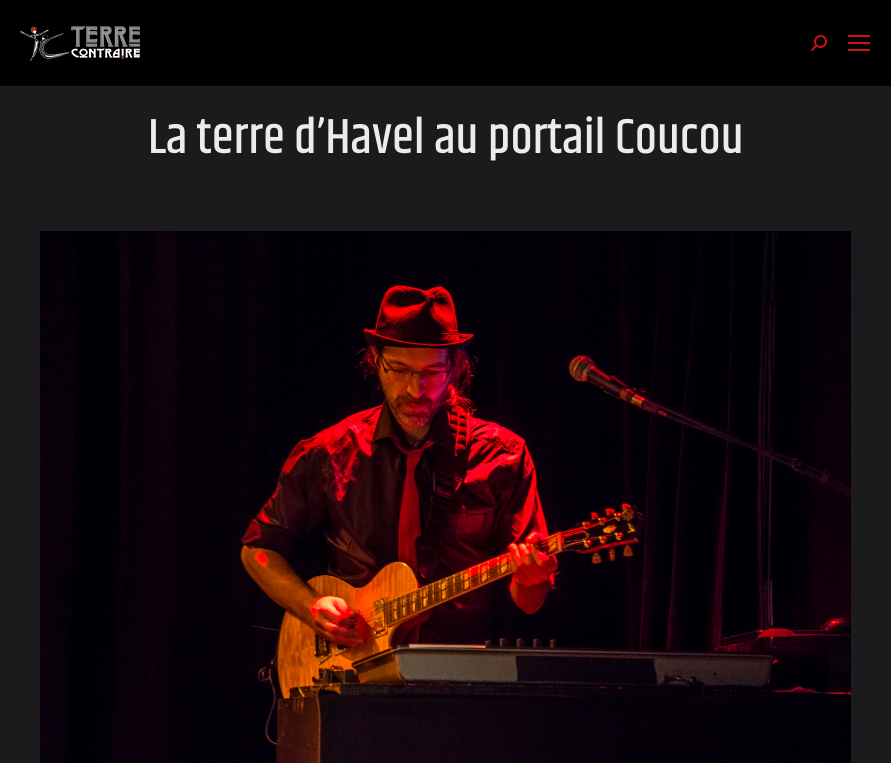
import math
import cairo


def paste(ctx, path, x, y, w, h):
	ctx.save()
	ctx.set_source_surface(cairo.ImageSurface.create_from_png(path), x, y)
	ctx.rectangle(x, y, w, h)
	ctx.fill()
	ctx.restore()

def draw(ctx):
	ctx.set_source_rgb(0.106, 0.106, 0.114)
	ctx.paint()
	ctx.set_source_rgb(0, 0, 0)
	ctx.rectangle(0, 0, 891, 86)
	ctx.fill()
	paste(ctx, 'media/1.png', 20, 26, 120, 35)
	paste(ctx, 'media/2.png', 811, 35, 16, 16)
	ctx.set_source_rgb(0.8, 0.063, 0.075)
	ctx.rectangle(848, 35, 22, 2)
	ctx.rectangle(848, 42, 22, 2)
	ctx.rectangle(848, 49, 22, 2)
	ctx.fill()
	ctx.select_font_face('Khand Medium')
	ctx.set_font_size(50)
	ctx.set_source_rgb(0.922, 0.925, 0.937)
	ctx.move_to(148, 153)
	ctx.show_text('La terre d’Havel au portail Coucou')
	paste(ctx, 'media/3.png', 40, 231, 811, 532)


surface = cairo.ImageSurface(cairo.FORMAT_RGB24, 891, 763)
ctx = cairo.Context(surface)
options = cairo.FontOptions()
options.set_hint_metrics(cairo.HINT_METRICS_OFF)
options.set_hint_style(cairo.HINT_STYLE_NONE)
ctx.set_font_options(options)
ctx.set_miter_limit(4)
draw(ctx)
surface.write_to_png('image.png')
